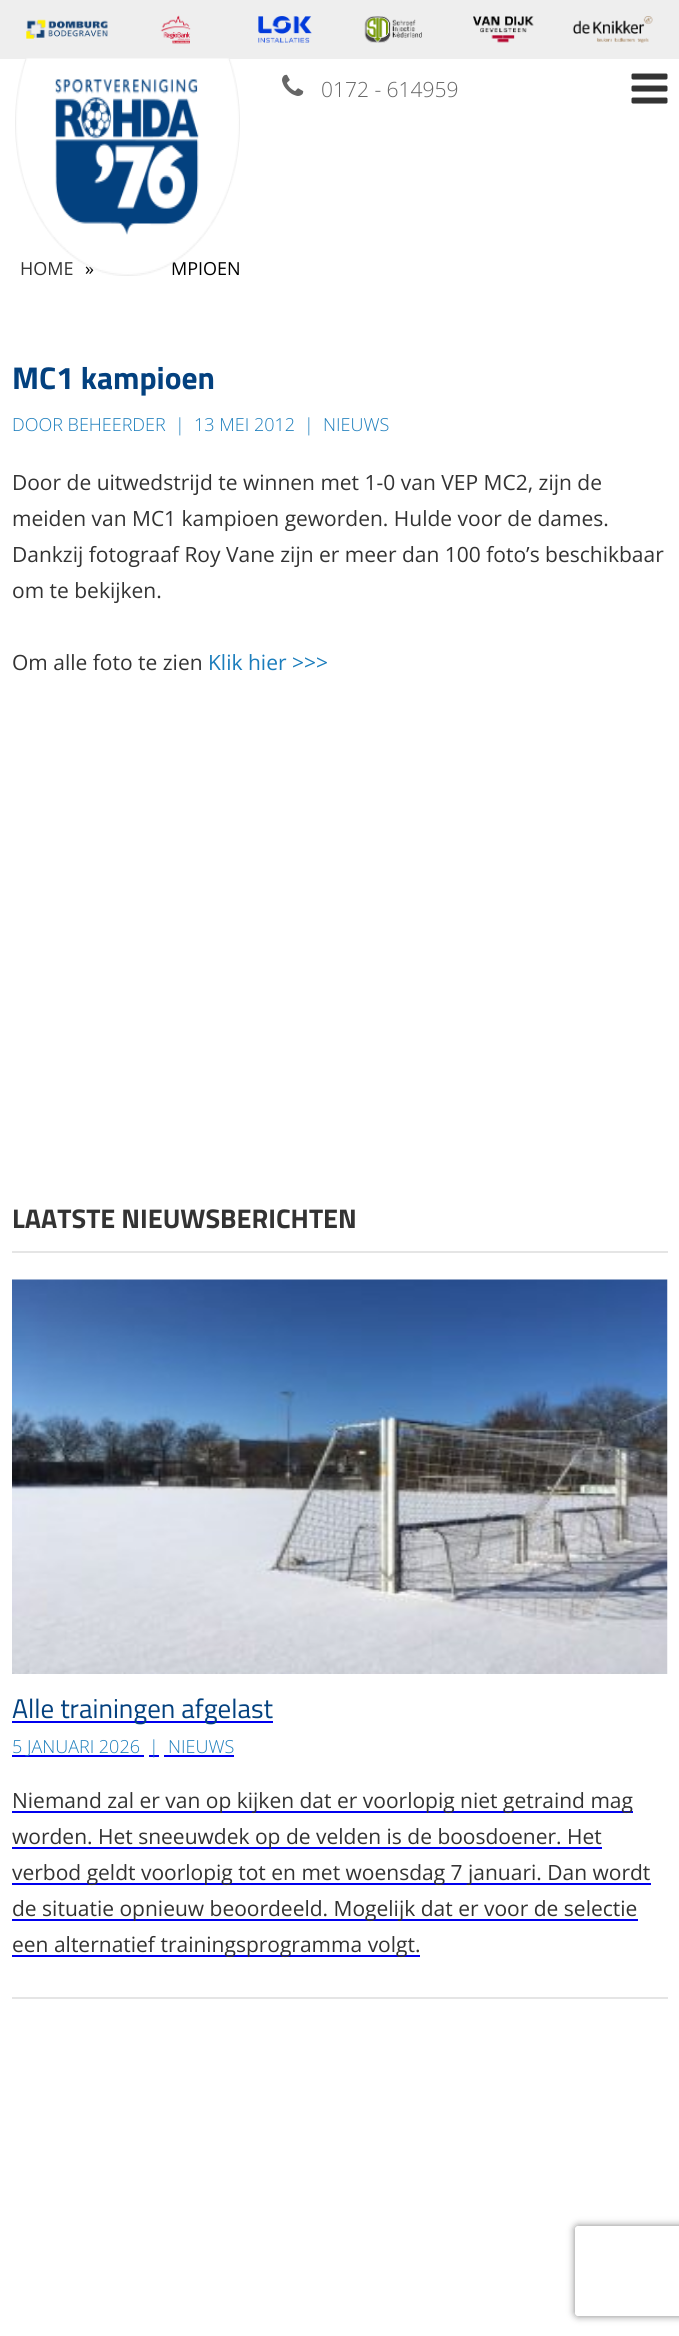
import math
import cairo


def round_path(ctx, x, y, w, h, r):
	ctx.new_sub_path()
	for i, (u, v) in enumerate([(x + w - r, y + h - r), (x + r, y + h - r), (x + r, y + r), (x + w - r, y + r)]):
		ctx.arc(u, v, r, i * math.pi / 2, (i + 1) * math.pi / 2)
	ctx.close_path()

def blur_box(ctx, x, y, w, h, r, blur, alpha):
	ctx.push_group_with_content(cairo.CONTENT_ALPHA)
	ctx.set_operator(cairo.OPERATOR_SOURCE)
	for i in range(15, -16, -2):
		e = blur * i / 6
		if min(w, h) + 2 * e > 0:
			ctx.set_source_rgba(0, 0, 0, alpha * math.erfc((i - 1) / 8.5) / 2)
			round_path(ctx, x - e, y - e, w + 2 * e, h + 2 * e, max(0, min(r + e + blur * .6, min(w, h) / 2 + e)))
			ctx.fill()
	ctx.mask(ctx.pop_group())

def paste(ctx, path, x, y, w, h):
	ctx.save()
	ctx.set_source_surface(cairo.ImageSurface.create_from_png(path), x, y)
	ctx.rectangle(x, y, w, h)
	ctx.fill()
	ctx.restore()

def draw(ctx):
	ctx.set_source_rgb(1, 1, 1)
	ctx.paint()
	ctx.set_source_rgb(0.933, 0.933, 0.933)
	ctx.rectangle(0, 0, 679, 59)
	ctx.fill()
	paste(ctx, 'media/1.png', 26, 19, 82, 20)
	paste(ctx, 'media/2.png', 160, 15, 31, 29)
	paste(ctx, 'media/3.png', 258, 16, 54, 27)
	paste(ctx, 'media/4.png', 364, 16, 58, 27)
	paste(ctx, 'media/5.png', 473, 16, 61, 27)
	paste(ctx, 'media/6.png', 572, 16, 81, 27)
	ctx.select_font_face('Open Sans')
	ctx.set_font_size(18)
	ctx.set_source_rgb(0.2, 0.2, 0.2)
	ctx.move_to(20, 275)
	ctx.show_text('HOME')
	ctx.set_source_rgb(0, 0, 0)
	ctx.move_to(85, 275)
	ctx.show_text('»')
	ctx.move_to(171, 275)
	ctx.show_text('MPIOEN')
	paste(ctx, 'media/7.png', 15, 58, 225, 218)
	paste(ctx, 'media/8.png', 282, 74, 22, 22)
	ctx.select_font_face('Open Sans Light')
	ctx.set_font_size(21)
	ctx.set_source_rgb(0.4, 0.4, 0.4)
	ctx.move_to(321, 97)
	ctx.show_text('0172 - 614959')
	paste(ctx, 'media/9.png', 631, 73, 37, 31)
	ctx.select_font_face('Titillium Web', cairo.FONT_SLANT_NORMAL, cairo.FONT_WEIGHT_BOLD)
	ctx.set_font_size(31.5)
	ctx.set_source_rgb(0.012, 0.255, 0.498)
	ctx.move_to(12, 389)
	ctx.show_text('MC1 kampioen')
	ctx.select_font_face('Open Sans Light')
	ctx.set_font_size(18)
	ctx.set_source_rgb(0.106, 0.49, 0.737)
	for x, y, s in [
		(12, 431, 'DOOR BEHEERDER'),
		(175, 431, '|'),
		(194, 431, '13 MEI 2012'),
		(304, 431, '|'),
		(323, 431, 'NIEUWS'),
	]:
		ctx.move_to(x, y)
		ctx.show_text(s)
	ctx.select_font_face('Open Sans')
	ctx.set_font_size(21)
	ctx.set_source_rgb(0.2, 0.2, 0.2)
	for x, y, s in [
		(12, 490, 'Door de uitwedstrijd te winnen met 1-0 van VEP MC2, zijn de'),
		(12, 526, 'meiden van MC1 kampioen geworden. Hulde voor de dames.'),
		(12, 562, 'Dankzij fotograaf Roy Vane zijn er meer dan 100 foto’s beschikbaar'),
		(12, 598, 'om te bekijken.'),
		(12, 670, 'Om alle foto te zien'),
	]:
		ctx.move_to(x, y)
		ctx.show_text(s)
	ctx.set_source_rgb(0.106, 0.49, 0.737)
	ctx.move_to(208, 670)
	ctx.show_text('Klik hier >>>')
	ctx.select_font_face('Titillium Web', cairo.FONT_SLANT_NORMAL, cairo.FONT_WEIGHT_BOLD)
	ctx.set_font_size(27)
	ctx.set_source_rgb(0.2, 0.2, 0.2)
	ctx.move_to(12, 1228)
	ctx.show_text('LAATSTE NIEUWSBERICHTEN')
	ctx.set_source_rgb(0.898, 0.898, 0.898)
	ctx.rectangle(12, 1251, 656, 2)
	ctx.fill()
	paste(ctx, 'media/10.png', 12, 1279, 656, 395)
	ctx.set_source_rgb(0, 0, 0.933)
	ctx.rectangle(12, 1721, 261, 2)
	ctx.fill()
	ctx.select_font_face('Titillium Web')
	ctx.set_source_rgb(0.012, 0.255, 0.498)
	ctx.move_to(12, 1718)
	ctx.show_text('Alle trainingen afgelast')
	ctx.set_source_rgb(0, 0, 0.933)
	ctx.rectangle(12, 1755, 132, 2)
	ctx.fill()
	ctx.select_font_face('Open Sans Light')
	ctx.set_font_size(18)
	ctx.set_source_rgb(0.106, 0.49, 0.737)
	ctx.move_to(12, 1753)
	ctx.show_text('5 JANUARI 2026')
	ctx.set_source_rgb(0, 0, 0.933)
	ctx.rectangle(149, 1755, 10, 2)
	ctx.fill()
	ctx.set_source_rgb(0.106, 0.49, 0.737)
	ctx.move_to(149, 1753)
	ctx.show_text('|')
	ctx.move_to(168, 1753)
	ctx.show_text('NIEUWS')
	ctx.set_source_rgb(0, 0, 0.933)
	ctx.rectangle(164, 1755, 70, 2)
	ctx.fill()
	ctx.rectangle(12, 1811, 621, 2)
	ctx.fill()
	ctx.select_font_face('Open Sans')
	ctx.set_font_size(21)
	ctx.set_source_rgb(0.2, 0.2, 0.2)
	ctx.move_to(12, 1808)
	ctx.show_text('Niemand zal er van op kijken dat er voorlopig niet getraind mag')
	ctx.set_source_rgb(0, 0, 0.933)
	ctx.rectangle(12, 1847, 590, 2)
	ctx.fill()
	ctx.set_source_rgb(0.2, 0.2, 0.2)
	ctx.move_to(12, 1844)
	ctx.show_text('worden. Het sneeuwdek op de velden is de boosdoener. Het')
	ctx.set_source_rgb(0, 0, 0.933)
	ctx.rectangle(12, 1883, 639, 2)
	ctx.fill()
	ctx.set_source_rgb(0.2, 0.2, 0.2)
	ctx.move_to(12, 1880)
	ctx.show_text('verbod geldt voorlopig tot en met woensdag 7 januari. Dan wordt')
	ctx.set_source_rgb(0, 0, 0.933)
	ctx.rectangle(12, 1919, 626, 2)
	ctx.fill()
	ctx.set_source_rgb(0.2, 0.2, 0.2)
	ctx.move_to(12, 1916)
	ctx.show_text('de situatie opnieuw beoordeeld. Mogelijk dat er voor de selectie')
	ctx.set_source_rgb(0, 0, 0.933)
	ctx.rectangle(12, 1955, 408, 2)
	ctx.fill()
	ctx.set_source_rgb(0.2, 0.2, 0.2)
	ctx.move_to(12, 1952)
	ctx.show_text('een alternatief trainingsprogramma volgt.')
	ctx.set_source_rgb(0.898, 0.898, 0.898)
	ctx.rectangle(12, 1997, 656, 2)
	ctx.fill()
	ctx.save()
	ctx.set_fill_rule(cairo.FILL_RULE_EVEN_ODD)
	ctx.new_path()
	ctx.move_to(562, 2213)
	ctx.line_to(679, 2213)
	ctx.line_to(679, 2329)
	ctx.line_to(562, 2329)
	ctx.close_path()
	ctx.move_to(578, 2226)
	ctx.line_to(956, 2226)
	ctx.curve_to(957.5, 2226, 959, 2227.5, 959, 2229)
	ctx.line_to(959, 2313)
	ctx.curve_to(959, 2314.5, 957.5, 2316, 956, 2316)
	ctx.line_to(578, 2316)
	ctx.curve_to(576.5, 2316, 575, 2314.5, 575, 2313)
	ctx.line_to(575, 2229)
	ctx.curve_to(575, 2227.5, 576.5, 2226, 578, 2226)
	ctx.close_path()
	ctx.clip()
	ctx.set_source_rgb(0.502, 0.502, 0.502)
	blur_box(ctx, 575, 2226, 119, 90, 3, 4, 1)
	ctx.restore()


surface = cairo.ImageSurface(cairo.FORMAT_RGB24, 679, 2336)
ctx = cairo.Context(surface)
options = cairo.FontOptions()
options.set_hint_metrics(cairo.HINT_METRICS_OFF)
options.set_hint_style(cairo.HINT_STYLE_NONE)
ctx.set_font_options(options)
ctx.set_miter_limit(4)
draw(ctx)
surface.write_to_png('image.png')
